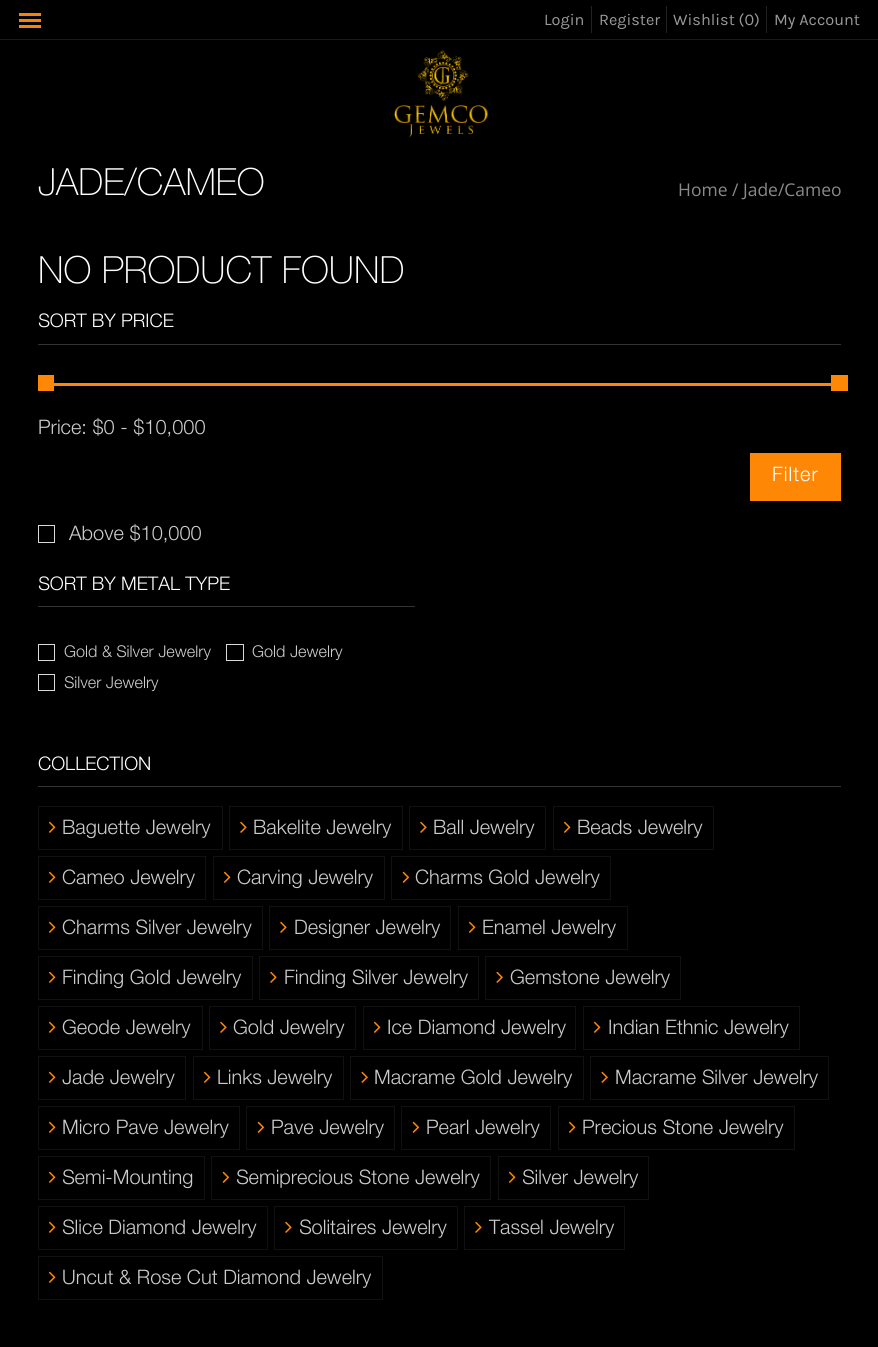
import math
import cairo


def write_spaced(ctx, x, y, s, letter, word):
	ctx.move_to(x, y)
	for ch in s:
		ctx.show_text(ch)
		ctx.rel_move_to(letter + word * (ch == ' '), 0)

def paste(ctx, path, x, y, w, h):
	ctx.save()
	ctx.set_source_surface(cairo.ImageSurface.create_from_png(path), x, y)
	ctx.rectangle(x, y, w, h)
	ctx.fill()
	ctx.restore()

def draw(ctx):
	ctx.set_source_rgb(0, 0, 0)
	ctx.paint()
	ctx.set_source_rgb(0.102, 0.102, 0.102)
	ctx.rectangle(0, 39, 878, 1)
	ctx.fill()
	ctx.set_source_rgb(0.969, 0.514, 0.02)
	ctx.rectangle(19, 19, 22, 3)
	ctx.rectangle(19, 13, 22, 3)
	ctx.rectangle(19, 25, 22, 3)
	ctx.fill()
	ctx.set_source_rgb(0.133, 0.133, 0.133)
	ctx.rectangle(591, 6, 1, 27)
	ctx.fill()
	ctx.select_font_face('Karla')
	ctx.set_font_size(16.25)
	ctx.set_source_rgb(0.6, 0.6, 0.6)
	ctx.move_to(544, 25)
	ctx.show_text('Login')
	ctx.set_source_rgb(0.133, 0.133, 0.133)
	ctx.rectangle(666, 6, 1, 27)
	ctx.fill()
	ctx.set_source_rgb(0.6, 0.6, 0.6)
	ctx.move_to(599, 25)
	ctx.show_text('Register')
	ctx.set_source_rgb(0.133, 0.133, 0.133)
	ctx.rectangle(766, 6, 1, 27)
	ctx.fill()
	ctx.set_source_rgb(0.6, 0.6, 0.6)
	ctx.move_to(673, 25)
	ctx.show_text('Wishlist (0)')
	ctx.move_to(774, 25)
	ctx.show_text('My Account')
	paste(ctx, 'media/1.png', 394, 50, 94, 88)
	ctx.select_font_face('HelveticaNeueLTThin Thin')
	ctx.set_font_size(37.5)
	ctx.set_source_rgb(1, 1, 1)
	ctx.move_to(38, 195)
	ctx.show_text('JADE/CAMEO')
	ctx.select_font_face('Open Sans')
	ctx.set_font_size(17.5)
	ctx.set_source_rgb(0.541, 0.541, 0.541)
	ctx.move_to(678, 196)
	ctx.show_text('Home / Jade/Cameo')
	ctx.select_font_face('HelveticaNeueLTThin Thin')
	ctx.set_font_size(37.5)
	ctx.set_source_rgb(1, 1, 1)
	ctx.move_to(38, 283)
	ctx.show_text('NO PRODUCT FOUND')
	ctx.set_source_rgb(0.2, 0.2, 0.2)
	ctx.rectangle(38, 344, 803, 1)
	ctx.fill()
	ctx.select_font_face('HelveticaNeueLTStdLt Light')
	ctx.set_font_size(18.75)
	ctx.set_source_rgb(1, 1, 1)
	ctx.move_to(38, 327)
	ctx.show_text('SORT BY PRICE')
	ctx.set_source_rgb(1, 0.529, 0.024)
	ctx.rectangle(38, 375, 16, 16)
	ctx.rectangle(54, 383, 777, 3)
	ctx.rectangle(831, 375, 17, 16)
	ctx.fill()
	ctx.set_font_size(20)
	ctx.set_source_rgb(0.8, 0.8, 0.8)
	ctx.move_to(38, 434)
	ctx.show_text('Price: $0 - $10,000')
	ctx.set_source_rgb(1, 0.529, 0.024)
	ctx.rectangle(750, 453, 91, 48)
	ctx.fill()
	ctx.set_source_rgb(1, 1, 1)
	write_spaced(ctx, 772, 481, 'Filter', 1, 0)
	ctx.rectangle(38.5, 525.5, 16, 17)
	ctx.set_source_rgb(0.851, 0.851, 0.851)
	ctx.set_line_width(1)
	ctx.stroke()
	ctx.set_source_rgb(0.8, 0.8, 0.8)
	ctx.move_to(69, 540)
	ctx.show_text('Above $10,000')
	ctx.set_source_rgb(0.2, 0.2, 0.2)
	ctx.rectangle(38, 606, 377, 1)
	ctx.fill()
	ctx.set_font_size(18.75)
	ctx.set_source_rgb(1, 1, 1)
	ctx.move_to(38, 590)
	ctx.show_text('SORT BY METAL TYPE')
	ctx.rectangle(38.5, 644.5, 16, 16)
	ctx.set_source_rgb(0.851, 0.851, 0.851)
	ctx.stroke()
	ctx.set_font_size(16.25)
	ctx.set_source_rgb(0.8, 0.8, 0.8)
	ctx.move_to(64, 657)
	ctx.show_text('Gold & Silver Jewelry')
	ctx.rectangle(226.5, 644.5, 17, 16)
	ctx.set_source_rgb(0.851, 0.851, 0.851)
	ctx.stroke()
	ctx.set_source_rgb(0.8, 0.8, 0.8)
	ctx.move_to(252, 657)
	ctx.show_text('Gold Jewelry')
	ctx.rectangle(38.5, 674.5, 16, 16)
	ctx.set_source_rgb(0.851, 0.851, 0.851)
	ctx.stroke()
	ctx.set_source_rgb(0.8, 0.8, 0.8)
	ctx.move_to(64, 688)
	ctx.show_text('Silver Jewelry')
	ctx.set_source_rgb(0.2, 0.2, 0.2)
	ctx.rectangle(38, 786, 803, 1)
	ctx.fill()
	ctx.set_font_size(18.75)
	ctx.set_source_rgb(1, 1, 1)
	ctx.move_to(38, 770)
	ctx.show_text('COLLECTION')
	ctx.rectangle(38.5, 806.5, 184, 43)
	ctx.set_source_rgb(0.067, 0.067, 0.067)
	ctx.stroke()
	paste(ctx, 'media/2.png', 48, 821, 8, 12)
	ctx.set_font_size(20)
	ctx.set_source_rgb(0.8, 0.8, 0.8)
	ctx.move_to(62, 834)
	ctx.show_text('Baguette Jewelry')
	ctx.rectangle(229.5, 806.5, 173, 43)
	ctx.set_source_rgb(0.067, 0.067, 0.067)
	ctx.stroke()
	paste(ctx, 'media/3.png', 240, 821, 7, 12)
	ctx.set_source_rgb(0.8, 0.8, 0.8)
	ctx.move_to(253, 834)
	ctx.show_text('Bakelite Jewelry')
	ctx.rectangle(409.5, 806.5, 136, 43)
	ctx.set_source_rgb(0.067, 0.067, 0.067)
	ctx.stroke()
	paste(ctx, 'media/3.png', 420, 821, 7, 12)
	ctx.set_source_rgb(0.8, 0.8, 0.8)
	ctx.move_to(433, 834)
	ctx.show_text('Ball Jewelry')
	ctx.rectangle(553.5, 806.5, 160, 43)
	ctx.set_source_rgb(0.067, 0.067, 0.067)
	ctx.stroke()
	paste(ctx, 'media/2.png', 563, 821, 8, 12)
	ctx.set_source_rgb(0.8, 0.8, 0.8)
	ctx.move_to(577, 834)
	ctx.show_text('Beads Jewelry')
	ctx.rectangle(38.5, 856.5, 167, 43)
	ctx.set_source_rgb(0.067, 0.067, 0.067)
	ctx.stroke()
	paste(ctx, 'media/2.png', 48, 871, 8, 12)
	ctx.set_source_rgb(0.8, 0.8, 0.8)
	ctx.move_to(62, 884)
	ctx.show_text('Cameo Jewelry')
	ctx.rectangle(213.5, 856.5, 171, 43)
	ctx.set_source_rgb(0.067, 0.067, 0.067)
	ctx.stroke()
	paste(ctx, 'media/2.png', 223, 871, 8, 12)
	ctx.set_source_rgb(0.8, 0.8, 0.8)
	ctx.move_to(237, 884)
	ctx.show_text('Carving Jewelry')
	ctx.rectangle(391.5, 856.5, 219, 43)
	ctx.set_source_rgb(0.067, 0.067, 0.067)
	ctx.stroke()
	paste(ctx, 'media/4.png', 402, 871, 8, 12)
	ctx.set_source_rgb(0.8, 0.8, 0.8)
	ctx.move_to(415, 884)
	ctx.show_text('Charms Gold Jewelry')
	ctx.rectangle(38.5, 906.5, 224, 43)
	ctx.set_source_rgb(0.067, 0.067, 0.067)
	ctx.stroke()
	paste(ctx, 'media/2.png', 48, 921, 8, 12)
	ctx.set_source_rgb(0.8, 0.8, 0.8)
	ctx.move_to(62, 934)
	ctx.show_text('Charms Silver Jewelry')
	ctx.rectangle(269.5, 906.5, 181, 43)
	ctx.set_source_rgb(0.067, 0.067, 0.067)
	ctx.stroke()
	paste(ctx, 'media/3.png', 280, 921, 7, 12)
	ctx.set_source_rgb(0.8, 0.8, 0.8)
	ctx.move_to(294, 934)
	ctx.show_text('Designer Jewelry')
	ctx.rectangle(458.5, 906.5, 169, 43)
	ctx.set_source_rgb(0.067, 0.067, 0.067)
	ctx.stroke()
	paste(ctx, 'media/2.png', 468, 921, 8, 12)
	ctx.set_source_rgb(0.8, 0.8, 0.8)
	ctx.move_to(482, 934)
	ctx.show_text('Enamel Jewelry')
	ctx.rectangle(38.5, 956.5, 214, 43)
	ctx.set_source_rgb(0.067, 0.067, 0.067)
	ctx.stroke()
	paste(ctx, 'media/2.png', 48, 971, 8, 12)
	ctx.set_source_rgb(0.8, 0.8, 0.8)
	ctx.move_to(62, 984)
	ctx.show_text('Finding Gold Jewelry')
	ctx.rectangle(259.5, 956.5, 219, 43)
	ctx.set_source_rgb(0.067, 0.067, 0.067)
	ctx.stroke()
	paste(ctx, 'media/3.png', 270, 971, 7, 12)
	ctx.set_source_rgb(0.8, 0.8, 0.8)
	ctx.move_to(284, 984)
	ctx.show_text('Finding Silver Jewelry')
	ctx.rectangle(485.5, 956.5, 195, 43)
	ctx.set_source_rgb(0.067, 0.067, 0.067)
	ctx.stroke()
	paste(ctx, 'media/5.png', 496, 971, 7, 12)
	ctx.set_source_rgb(0.8, 0.8, 0.8)
	ctx.move_to(510, 984)
	ctx.show_text('Gemstone Jewelry')
	ctx.rectangle(38.5, 1006.5, 164, 43)
	ctx.set_source_rgb(0.067, 0.067, 0.067)
	ctx.stroke()
	paste(ctx, 'media/2.png', 48, 1021, 8, 12)
	ctx.set_source_rgb(0.8, 0.8, 0.8)
	ctx.move_to(62, 1034)
	ctx.show_text('Geode Jewelry')
	ctx.rectangle(209.5, 1006.5, 146, 43)
	ctx.set_source_rgb(0.067, 0.067, 0.067)
	ctx.stroke()
	paste(ctx, 'media/3.png', 220, 1021, 7, 12)
	ctx.set_source_rgb(0.8, 0.8, 0.8)
	ctx.move_to(233, 1034)
	ctx.show_text('Gold Jewelry')
	ctx.rectangle(363.5, 1006.5, 212, 43)
	ctx.set_source_rgb(0.067, 0.067, 0.067)
	ctx.stroke()
	paste(ctx, 'media/2.png', 373, 1021, 8, 12)
	ctx.set_source_rgb(0.8, 0.8, 0.8)
	ctx.move_to(387, 1034)
	ctx.show_text('Ice Diamond Jewelry')
	ctx.rectangle(583.5, 1006.5, 216, 43)
	ctx.set_source_rgb(0.067, 0.067, 0.067)
	ctx.stroke()
	paste(ctx, 'media/2.png', 593, 1021, 8, 12)
	ctx.set_source_rgb(0.8, 0.8, 0.8)
	ctx.move_to(608, 1034)
	ctx.show_text('Indian Ethnic Jewelry')
	ctx.rectangle(38.5, 1056.5, 147, 43)
	ctx.set_source_rgb(0.067, 0.067, 0.067)
	ctx.stroke()
	paste(ctx, 'media/2.png', 48, 1071, 8, 12)
	ctx.set_source_rgb(0.8, 0.8, 0.8)
	ctx.move_to(62, 1084)
	ctx.show_text('Jade Jewelry')
	ctx.rectangle(193.5, 1056.5, 150, 43)
	ctx.set_source_rgb(0.067, 0.067, 0.067)
	ctx.stroke()
	paste(ctx, 'media/2.png', 203, 1071, 8, 12)
	ctx.set_source_rgb(0.8, 0.8, 0.8)
	ctx.move_to(217, 1084)
	ctx.show_text('Links Jewelry')
	ctx.rectangle(350.5, 1056.5, 233, 43)
	ctx.set_source_rgb(0.067, 0.067, 0.067)
	ctx.stroke()
	paste(ctx, 'media/5.png', 361, 1071, 7, 12)
	ctx.set_source_rgb(0.8, 0.8, 0.8)
	ctx.move_to(374, 1084)
	ctx.show_text('Macrame Gold Jewelry')
	ctx.rectangle(590.5, 1056.5, 238, 43)
	ctx.set_source_rgb(0.067, 0.067, 0.067)
	ctx.stroke()
	paste(ctx, 'media/5.png', 601, 1071, 7, 12)
	ctx.set_source_rgb(0.8, 0.8, 0.8)
	ctx.move_to(615, 1084)
	ctx.show_text('Macrame Silver Jewelry')
	ctx.rectangle(38.5, 1106.5, 201, 43)
	ctx.set_source_rgb(0.067, 0.067, 0.067)
	ctx.stroke()
	paste(ctx, 'media/2.png', 48, 1121, 8, 12)
	ctx.set_source_rgb(0.8, 0.8, 0.8)
	ctx.move_to(62, 1134)
	ctx.show_text('Micro Pave Jewelry')
	ctx.rectangle(246.5, 1106.5, 148, 43)
	ctx.set_source_rgb(0.067, 0.067, 0.067)
	ctx.stroke()
	paste(ctx, 'media/4.png', 257, 1121, 8, 12)
	ctx.set_source_rgb(0.8, 0.8, 0.8)
	ctx.move_to(271, 1134)
	ctx.show_text('Pave Jewelry')
	ctx.rectangle(401.5, 1106.5, 149, 43)
	ctx.set_source_rgb(0.067, 0.067, 0.067)
	ctx.stroke()
	paste(ctx, 'media/4.png', 412, 1121, 8, 12)
	ctx.set_source_rgb(0.8, 0.8, 0.8)
	ctx.move_to(426, 1134)
	ctx.show_text('Pearl Jewelry')
	ctx.rectangle(558.5, 1106.5, 236, 43)
	ctx.set_source_rgb(0.067, 0.067, 0.067)
	ctx.stroke()
	paste(ctx, 'media/2.png', 568, 1121, 8, 12)
	ctx.set_source_rgb(0.8, 0.8, 0.8)
	ctx.move_to(582, 1134)
	ctx.show_text('Precious Stone Jewelry')
	ctx.rectangle(38.5, 1156.5, 166, 43)
	ctx.set_source_rgb(0.067, 0.067, 0.067)
	ctx.stroke()
	paste(ctx, 'media/2.png', 48, 1171, 8, 12)
	ctx.set_source_rgb(0.8, 0.8, 0.8)
	ctx.move_to(62, 1184)
	ctx.show_text('Semi-Mounting')
	ctx.rectangle(211.5, 1156.5, 279, 43)
	ctx.set_source_rgb(0.067, 0.067, 0.067)
	ctx.stroke()
	paste(ctx, 'media/4.png', 222, 1171, 8, 12)
	ctx.set_source_rgb(0.8, 0.8, 0.8)
	ctx.move_to(236, 1184)
	ctx.show_text('Semiprecious Stone Jewelry')
	ctx.rectangle(498.5, 1156.5, 150, 43)
	ctx.set_source_rgb(0.067, 0.067, 0.067)
	ctx.stroke()
	paste(ctx, 'media/2.png', 508, 1171, 8, 12)
	ctx.set_source_rgb(0.8, 0.8, 0.8)
	ctx.move_to(522, 1184)
	ctx.show_text('Silver Jewelry')
	ctx.rectangle(38.5, 1206.5, 229, 43)
	ctx.set_source_rgb(0.067, 0.067, 0.067)
	ctx.stroke()
	paste(ctx, 'media/2.png', 48, 1221, 8, 12)
	ctx.set_source_rgb(0.8, 0.8, 0.8)
	ctx.move_to(62, 1234)
	ctx.show_text('Slice Diamond Jewelry')
	ctx.rectangle(274.5, 1206.5, 183, 43)
	ctx.set_source_rgb(0.067, 0.067, 0.067)
	ctx.stroke()
	paste(ctx, 'media/3.png', 285, 1221, 7, 12)
	ctx.set_source_rgb(0.8, 0.8, 0.8)
	ctx.move_to(299, 1234)
	ctx.show_text('Solitaires Jewelry')
	ctx.rectangle(464.5, 1206.5, 160, 43)
	ctx.set_source_rgb(0.067, 0.067, 0.067)
	ctx.stroke()
	paste(ctx, 'media/3.png', 475, 1221, 7, 12)
	ctx.set_source_rgb(0.8, 0.8, 0.8)
	ctx.move_to(489, 1234)
	ctx.show_text('Tassel Jewelry')
	ctx.rectangle(38.5, 1256.5, 344, 43)
	ctx.set_source_rgb(0.067, 0.067, 0.067)
	ctx.stroke()
	paste(ctx, 'media/2.png', 48, 1271, 8, 12)
	ctx.set_source_rgb(0.8, 0.8, 0.8)
	ctx.move_to(62, 1284)
	ctx.show_text('Uncut & Rose Cut Diamond Jewelry')


surface = cairo.ImageSurface(cairo.FORMAT_RGB24, 878, 1347)
ctx = cairo.Context(surface)
options = cairo.FontOptions()
options.set_hint_metrics(cairo.HINT_METRICS_OFF)
options.set_hint_style(cairo.HINT_STYLE_NONE)
ctx.set_font_options(options)
ctx.set_miter_limit(4)
draw(ctx)
surface.write_to_png('image.png')
